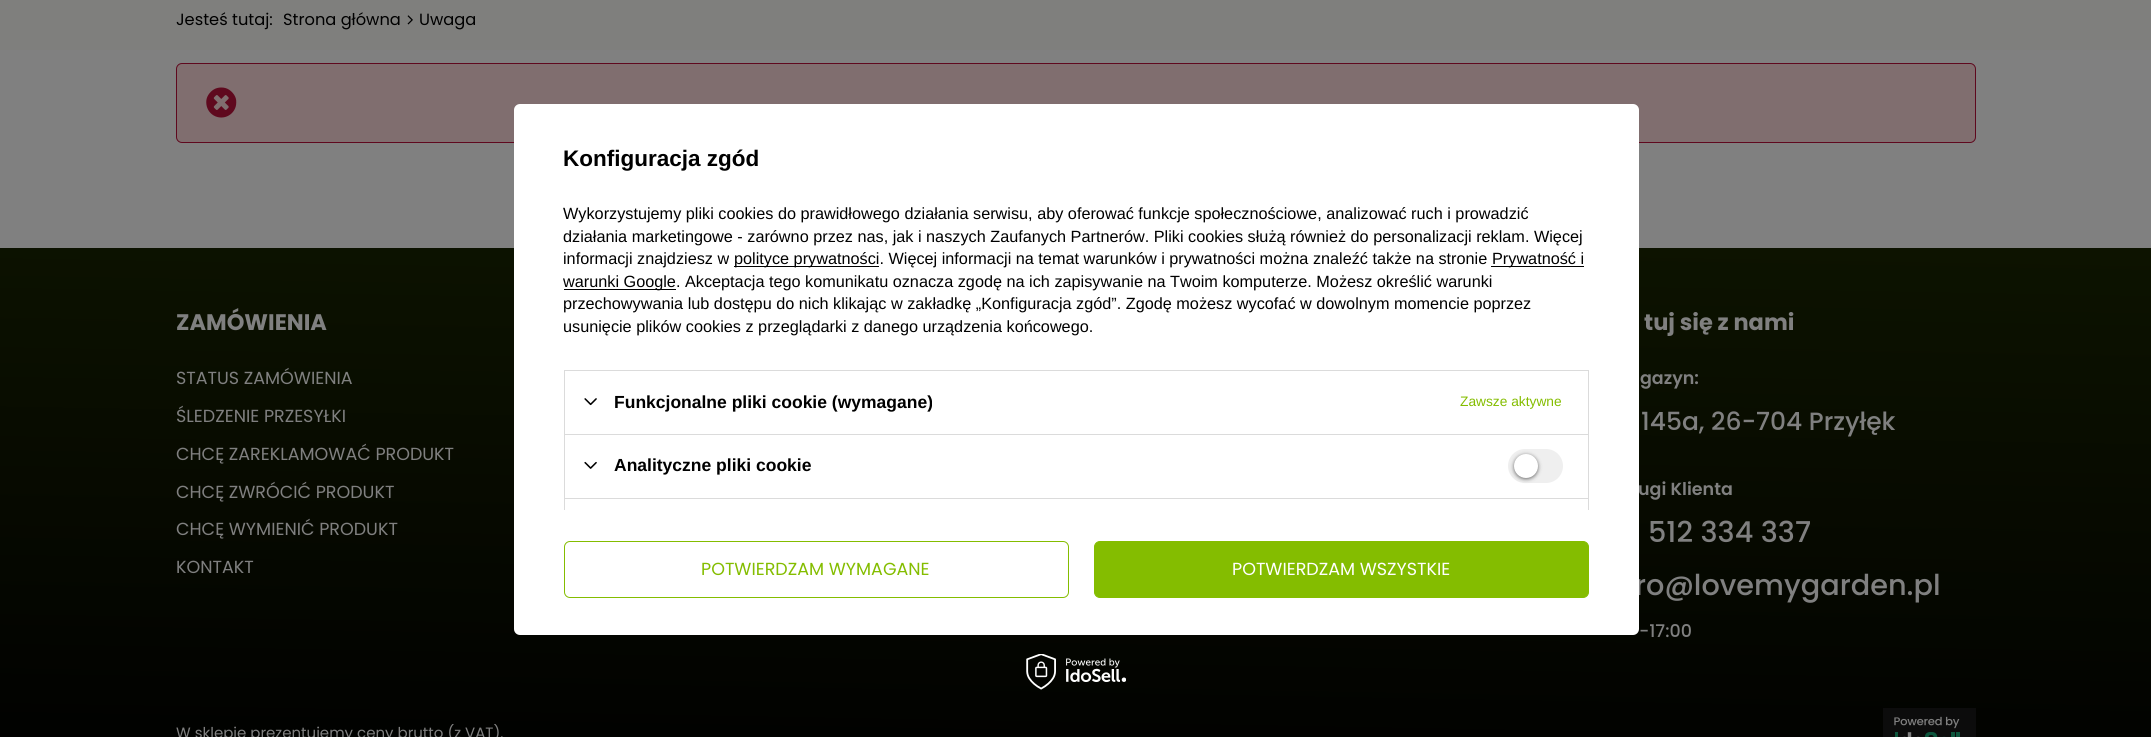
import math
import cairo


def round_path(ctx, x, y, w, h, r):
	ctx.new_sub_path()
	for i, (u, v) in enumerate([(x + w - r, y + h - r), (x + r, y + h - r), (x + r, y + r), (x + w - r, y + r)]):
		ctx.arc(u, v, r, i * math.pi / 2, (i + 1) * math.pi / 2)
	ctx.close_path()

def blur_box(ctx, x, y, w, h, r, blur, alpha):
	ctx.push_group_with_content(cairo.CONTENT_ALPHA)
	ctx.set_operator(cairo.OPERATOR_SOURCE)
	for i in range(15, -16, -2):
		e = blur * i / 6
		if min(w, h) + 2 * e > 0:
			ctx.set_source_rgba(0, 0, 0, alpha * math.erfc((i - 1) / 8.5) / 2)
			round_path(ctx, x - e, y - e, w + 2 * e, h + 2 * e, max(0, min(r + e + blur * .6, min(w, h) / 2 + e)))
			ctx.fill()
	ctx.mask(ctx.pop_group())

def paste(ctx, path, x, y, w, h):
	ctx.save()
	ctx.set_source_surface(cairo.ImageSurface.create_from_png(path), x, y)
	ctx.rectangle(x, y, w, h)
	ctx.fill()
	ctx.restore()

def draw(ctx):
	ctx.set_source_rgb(0.502, 0.502, 0.502)
	ctx.paint()
	ctx.set_source_rgb(0.498, 0.498, 0.49)
	ctx.rectangle(0, 0, 2151, 50)
	ctx.fill()
	ctx.select_font_face('Poppins')
	ctx.set_font_size(16.25)
	ctx.set_source_rgb(0, 0, 0)
	ctx.move_to(176, 25)
	ctx.show_text('Jesteś tutaj:')
	ctx.move_to(283, 25)
	ctx.show_text('Strona główna')
	paste(ctx, 'media/1.png', 407, 15, 6, 10)
	ctx.move_to(419, 25)
	ctx.show_text('Uwaga')
	ctx.set_source_rgb(0.502, 0.431, 0.435)
	round_path(ctx, 176.5, 63.5, 1799, 79, 5.5)
	ctx.fill_preserve()
	ctx.set_source_rgb(0.373, 0.035, 0.118)
	ctx.set_line_width(1)
	ctx.stroke()
	paste(ctx, 'media/2.png', 206, 87, 31, 31)
	gradient = cairo.LinearGradient(1071, 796, 1081, 229)
	gradient.add_color_stop_rgba(0, 0, 0, 0, 1)
	gradient.add_color_stop_rgba(1, 0.051, 0.075, 0, 1)
	ctx.set_source(gradient)
	ctx.rectangle(0, 248, 2151, 489)
	ctx.fill()
	ctx.select_font_face('Poppins Medium')
	ctx.set_font_size(28.75)
	ctx.set_source_rgb(0.502, 0.502, 0.502)
	ctx.move_to(1635, 595)
	ctx.show_text('ro@lovemygarden.pl')
	ctx.set_source_rgb(1, 1, 1)
	round_path(ctx, 514, 104, 1125, 531, 6)
	ctx.fill()
	ctx.select_font_face('Liberation Sans', cairo.FONT_SLANT_NORMAL, cairo.FONT_WEIGHT_BOLD)
	ctx.set_font_size(22.5)
	ctx.set_source_rgb(0, 0, 0)
	ctx.move_to(563, 166)
	ctx.show_text('Konfiguracja zgód')
	ctx.select_font_face('Liberation Sans')
	ctx.set_font_size(16.25)
	for x, y, s in [
		(563, 219, 'Wykorzystujemy pliki cookies do prawidłowego działania serwisu, aby oferować funkcje społecznościowe, analizować ruch i prowadzić'),
		(563, 242, 'działania marketingowe - zarówno przez nas, jak i naszych Zaufanych Partnerów. Pliki cookies służą również do personalizacji reklam. Więcej'),
		(563, 264, 'informacji znajdziesz w'),
	]:
		ctx.move_to(x, y)
		ctx.show_text(s)
	ctx.rectangle(734, 266, 145, 1)
	ctx.fill()
	ctx.move_to(734, 264)
	ctx.show_text('polityce prywatności. Więcej informacji na temat warunków i prywatności można znaleźć także na stronie')
	ctx.rectangle(1491, 266, 93, 1)
	ctx.fill()
	ctx.move_to(1492, 264)
	ctx.show_text('Prywatność i')
	ctx.rectangle(564, 289, 112, 1)
	ctx.fill()
	for x, y, s in [
		(563, 287, 'warunki Google. Akceptacja tego komunikatu oznacza zgodę na ich zapisywanie na Twoim komputerze. Możesz określić warunki'),
		(563, 309, 'przechowywania lub dostępu do nich klikając w zakładkę „Konfiguracja zgód”. Zgodę możesz wycofać w dowolnym momencie poprzez'),
		(563, 332, 'usunięcie plików cookies z przeglądarki z danego urządzenia końcowego.'),
	]:
		ctx.move_to(x, y)
		ctx.show_text(s)
	ctx.set_source_rgb(0.859, 0.859, 0.859)
	ctx.rectangle(564, 370, 1025, 1)
	ctx.rectangle(1588, 370, 1, 64)
	ctx.rectangle(564, 370, 1, 64)
	ctx.fill()
	paste(ctx, 'media/3.png', 584, 398, 13, 8)
	ctx.select_font_face('Liberation Sans', cairo.FONT_SLANT_NORMAL, cairo.FONT_WEIGHT_BOLD)
	ctx.set_font_size(17.5)
	ctx.set_source_rgb(0, 0, 0)
	ctx.move_to(614, 408)
	ctx.show_text('Funkcjonalne pliki cookie (wymagane)')
	ctx.select_font_face('Liberation Sans')
	ctx.set_font_size(13.75)
	ctx.set_source_rgb(0.518, 0.741, 0)
	ctx.move_to(1460, 406)
	ctx.show_text('Zawsze aktywne')
	ctx.set_source_rgb(0.859, 0.859, 0.859)
	ctx.rectangle(564, 434, 1025, 1)
	ctx.rectangle(1588, 434, 1, 64)
	ctx.rectangle(564, 434, 1, 64)
	ctx.fill()
	paste(ctx, 'media/4.png', 584, 461, 13, 8)
	ctx.select_font_face('Liberation Sans', cairo.FONT_SLANT_NORMAL, cairo.FONT_WEIGHT_BOLD)
	ctx.set_font_size(17.5)
	ctx.set_source_rgb(0, 0, 0)
	ctx.move_to(614, 471)
	ctx.show_text('Analityczne pliki cookie')
	ctx.set_source_rgb(0.937, 0.937, 0.937)
	round_path(ctx, 1508, 449, 55, 34, 17)
	ctx.fill()
	ctx.set_source_rgb(0, 0, 0)
	blur_box(ctx, 1514, 455, 24, 24, 12, 2, 0.56)
	ctx.set_source_rgb(1, 1, 1)
	ctx.arc(1526, 466, 12, 0, 2 * math.pi)
	ctx.fill()
	round_path(ctx, 564.5, 541.5, 504, 56, 5.5)
	ctx.set_source_rgb(0.518, 0.741, 0)
	ctx.stroke()
	ctx.select_font_face('Poppins')
	ctx.move_to(701, 575)
	ctx.show_text('POTWIERDZAM WYMAGANE')
	round_path(ctx, 1094.5, 541.5, 494, 56, 5.5)
	ctx.fill_preserve()
	ctx.stroke()
	ctx.set_source_rgb(1, 1, 1)
	ctx.move_to(1232, 575)
	ctx.show_text('POTWIERDZAM WSZYSTKIE')
	ctx.save()
	ctx.rectangle(551, 141, 1050, 369)
	ctx.clip()
	ctx.rectangle(564.5, 498.5, 1024, 64)
	ctx.set_source_rgb(0.859, 0.859, 0.859)
	ctx.stroke()
	ctx.restore()
	paste(ctx, 'media/5.png', 1026, 654, 100, 36)
	ctx.select_font_face('Poppins', cairo.FONT_SLANT_NORMAL, cairo.FONT_WEIGHT_BOLD)
	ctx.set_font_size(22.5)
	ctx.set_source_rgb(0.502, 0.502, 0.502)
	ctx.move_to(176, 330)
	ctx.show_text('ZAMÓWIENIA')
	ctx.select_font_face('Poppins')
	ctx.set_font_size(17.5)
	for x, y, s in [
		(176, 384, 'STATUS ZAMÓWIENIA'),
		(176, 422, 'ŚLEDZENIE PRZESYŁKI'),
		(176, 460, 'CHCĘ ZAREKLAMOWAĆ PRODUKT'),
		(176, 498, 'CHCĘ ZWRÓCIĆ PRODUKT'),
		(176, 535, 'CHCĘ WYMIENIĆ PRODUKT'),
		(176, 573, 'KONTAKT'),
	]:
		ctx.move_to(x, y)
		ctx.show_text(s)
	ctx.select_font_face('Poppins', cairo.FONT_SLANT_NORMAL, cairo.FONT_WEIGHT_BOLD)
	ctx.set_font_size(22.5)
	ctx.move_to(1644, 330)
	ctx.show_text('tuj się z nami')
	ctx.select_font_face('Poppins SemiBold')
	ctx.set_font_size(17.5)
	ctx.move_to(1640, 384)
	ctx.show_text('gazyn:')
	ctx.select_font_face('Poppins Medium')
	ctx.set_font_size(25)
	ctx.move_to(1641, 430)
	ctx.show_text('145a, 26-704 Przyłęk')
	ctx.select_font_face('Poppins SemiBold')
	ctx.set_font_size(17.5)
	ctx.move_to(1638, 495)
	ctx.show_text('ugi Klienta')
	ctx.select_font_face('Poppins Medium')
	ctx.set_font_size(28.75)
	ctx.move_to(1648, 542)
	ctx.show_text('512 334 337')
	ctx.set_font_size(17.5)
	ctx.move_to(1639, 637)
	ctx.show_text('-17:00')
	ctx.select_font_face('Poppins')
	ctx.set_font_size(15)
	ctx.move_to(176, 738)
	ctx.show_text('W sklepie prezentujemy ceny brutto (z VAT).')
	paste(ctx, 'media/6.png', 1883, 708, 93, 29)


surface = cairo.ImageSurface(cairo.FORMAT_RGB24, 2151, 737)
ctx = cairo.Context(surface)
options = cairo.FontOptions()
options.set_hint_metrics(cairo.HINT_METRICS_OFF)
options.set_hint_style(cairo.HINT_STYLE_NONE)
ctx.set_font_options(options)
ctx.set_miter_limit(4)
draw(ctx)
surface.write_to_png('image.png')
